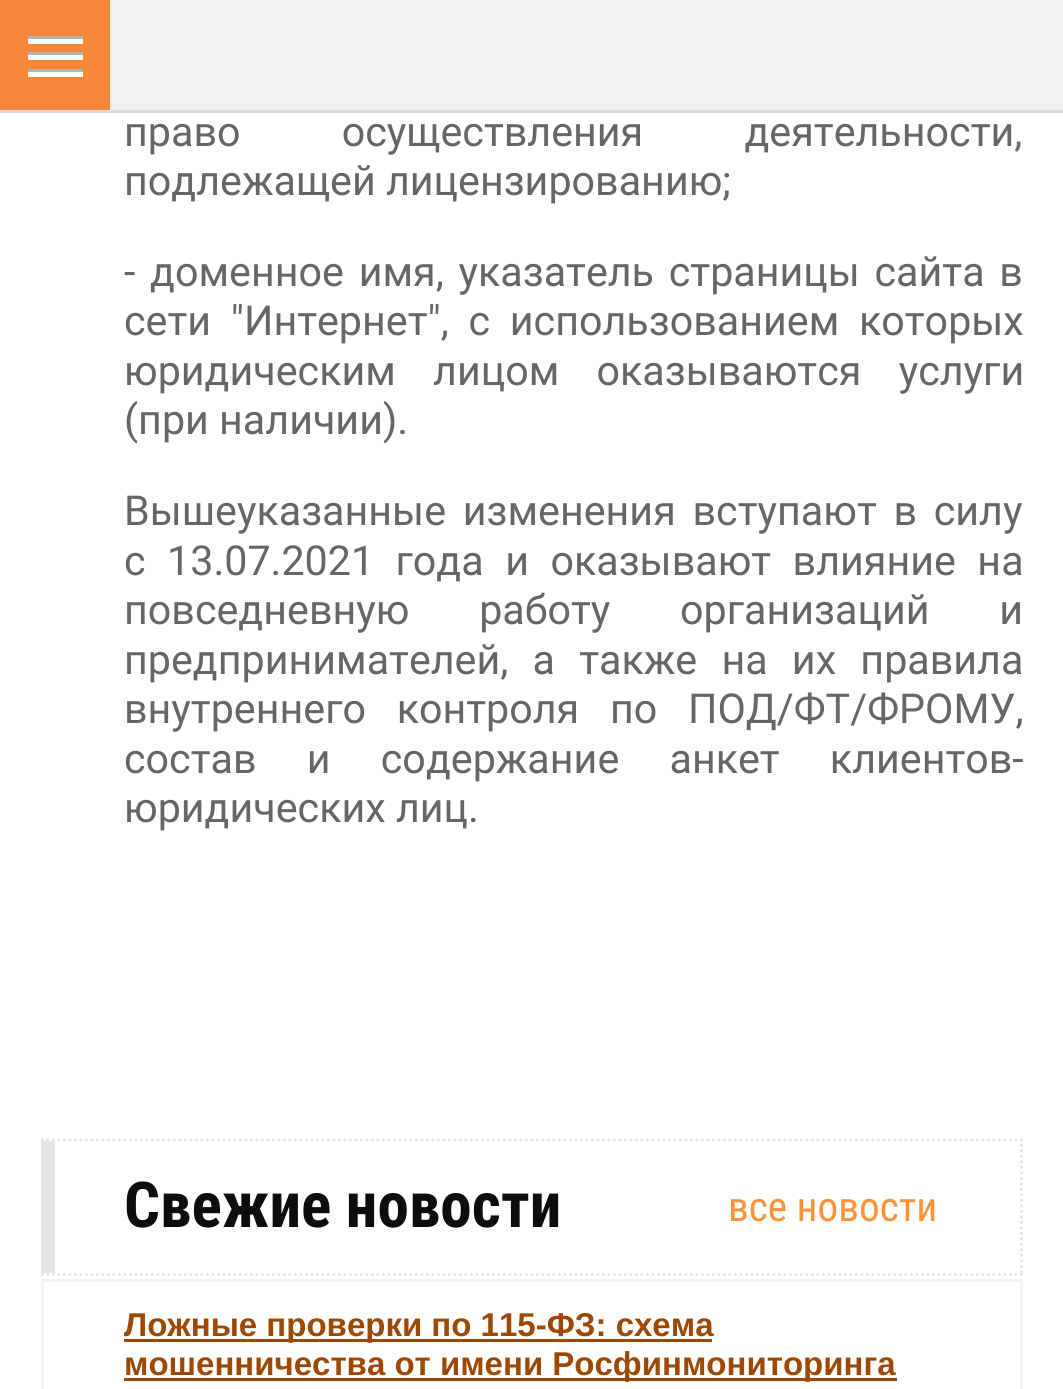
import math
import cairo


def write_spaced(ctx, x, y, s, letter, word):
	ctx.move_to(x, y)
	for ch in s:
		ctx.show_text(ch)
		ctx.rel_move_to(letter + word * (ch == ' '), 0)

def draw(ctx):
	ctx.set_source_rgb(1, 1, 1)
	ctx.paint()
	ctx.set_source_rgb(0.851, 0.851, 0.851)
	ctx.rectangle(0, 110, 1063, 3)
	ctx.fill()
	ctx.set_source_rgb(0.945, 0.945, 0.945)
	ctx.rectangle(110, 0, 953, 110)
	ctx.fill()
	ctx.set_source_rgb(0.961, 0.529, 0.224)
	ctx.rectangle(0, 0, 110, 110)
	ctx.fill()
	ctx.set_source_rgb(1, 1, 1)
	ctx.rectangle(28, 39, 55, 5)
	ctx.fill()
	ctx.set_source_rgb(0.702, 0.702, 0.702)
	ctx.rectangle(28, 36, 55, 3)
	ctx.fill()
	ctx.set_source_rgb(1, 1, 1)
	ctx.rectangle(28, 55, 55, 5)
	ctx.fill()
	ctx.set_source_rgb(0.702, 0.702, 0.702)
	ctx.rectangle(28, 52, 55, 3)
	ctx.fill()
	ctx.set_source_rgb(1, 1, 1)
	ctx.rectangle(28, 72, 55, 5)
	ctx.fill()
	ctx.set_source_rgb(0.702, 0.702, 0.702)
	ctx.rectangle(28, 69, 55, 3)
	ctx.fill()
	ctx.select_font_face('Roboto')
	ctx.set_font_size(41.25)
	ctx.set_source_rgb(0.4, 0.4, 0.4)
	write_spaced(ctx, 124, 146, 'право осуществления деятельности,', 0, 91)
	ctx.move_to(124, 195)
	ctx.show_text('подлежащей лицензированию;')
	write_spaced(ctx, 124, 286, '- доменное имя, указатель страницы сайта в', 0, 4.5)
	write_spaced(ctx, 124, 335, 'сети "Интернет", с использованием которых', 0, 9.5)
	write_spaced(ctx, 124, 385, 'юридическим лицом оказываются услуги', 0, 27)
	ctx.move_to(124, 434)
	ctx.show_text('(при наличии).')
	write_spaced(ctx, 124, 525, 'Вышеуказанные изменения вступают в силу', 0, 6.5)
	write_spaced(ctx, 124, 575, 'с 13.07.2021 года и оказывают влияние на', 0, 11.25)
	write_spaced(ctx, 124, 624, 'повседневную работу организаций и', 0, 59.5)
	write_spaced(ctx, 124, 674, 'предпринимателей, а также на их правила', 0, 14)
	write_spaced(ctx, 124, 723, 'внутреннего контроля по ПОД/ФТ/ФРОМУ,', 0, 20.5)
	write_spaced(ctx, 124, 773, 'состав и содержание анкет клиентов-', 0, 40)
	ctx.move_to(124, 822)
	ctx.show_text('юридических лиц.')
	ctx.set_source_rgb(0.902, 0.902, 0.902)
	ctx.rectangle(41, 1141, 14, 132)
	ctx.fill()
	ctx.new_path()
	ctx.move_to(41, 1140)
	ctx.line_to(1023, 1140)
	ctx.set_line_width(2.8)
	ctx.set_dash([2.75, 2.75])
	ctx.stroke()
	ctx.new_path()
	ctx.move_to(1021.5, 1138.5)
	ctx.line_to(1021.5, 1276)
	ctx.stroke()
	ctx.new_path()
	ctx.move_to(41, 1274.5)
	ctx.line_to(1023, 1274.5)
	ctx.stroke()
	ctx.select_font_face('Roboto Condensed', cairo.FONT_SLANT_NORMAL, cairo.FONT_WEIGHT_BOLD)
	ctx.set_font_size(63.25)
	ctx.set_source_rgb(0.051, 0.051, 0.051)
	ctx.move_to(124, 1227)
	ctx.show_text('Свежие новости')
	ctx.select_font_face('Roboto Condensed')
	ctx.set_font_size(41.25)
	ctx.set_source_rgb(1, 0.573, 0.22)
	ctx.move_to(728, 1221)
	ctx.show_text('все новости')
	ctx.rectangle(42.5, 1280.5, 979, 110)
	ctx.set_source_rgb(0.949, 0.949, 0.949)
	ctx.set_line_width(3)
	ctx.set_dash([])
	ctx.stroke()
	ctx.set_source_rgb(0.616, 0.286, 0.012)
	ctx.rectangle(124, 1339, 588, 3)
	ctx.fill()
	ctx.select_font_face('Liberation Sans', cairo.FONT_SLANT_NORMAL, cairo.FONT_WEIGHT_BOLD)
	ctx.set_font_size(33)
	ctx.move_to(124, 1336)
	ctx.show_text('Ложные проверки по 115-ФЗ: схема')
	ctx.rectangle(124, 1378, 773, 3)
	ctx.fill()
	ctx.move_to(124, 1375)
	ctx.show_text('мошенничества от имени Росфинмониторинга')


surface = cairo.ImageSurface(cairo.FORMAT_RGB24, 1063, 1389)
ctx = cairo.Context(surface)
options = cairo.FontOptions()
options.set_hint_metrics(cairo.HINT_METRICS_OFF)
options.set_hint_style(cairo.HINT_STYLE_NONE)
ctx.set_font_options(options)
ctx.set_miter_limit(4)
draw(ctx)
surface.write_to_png('image.png')
